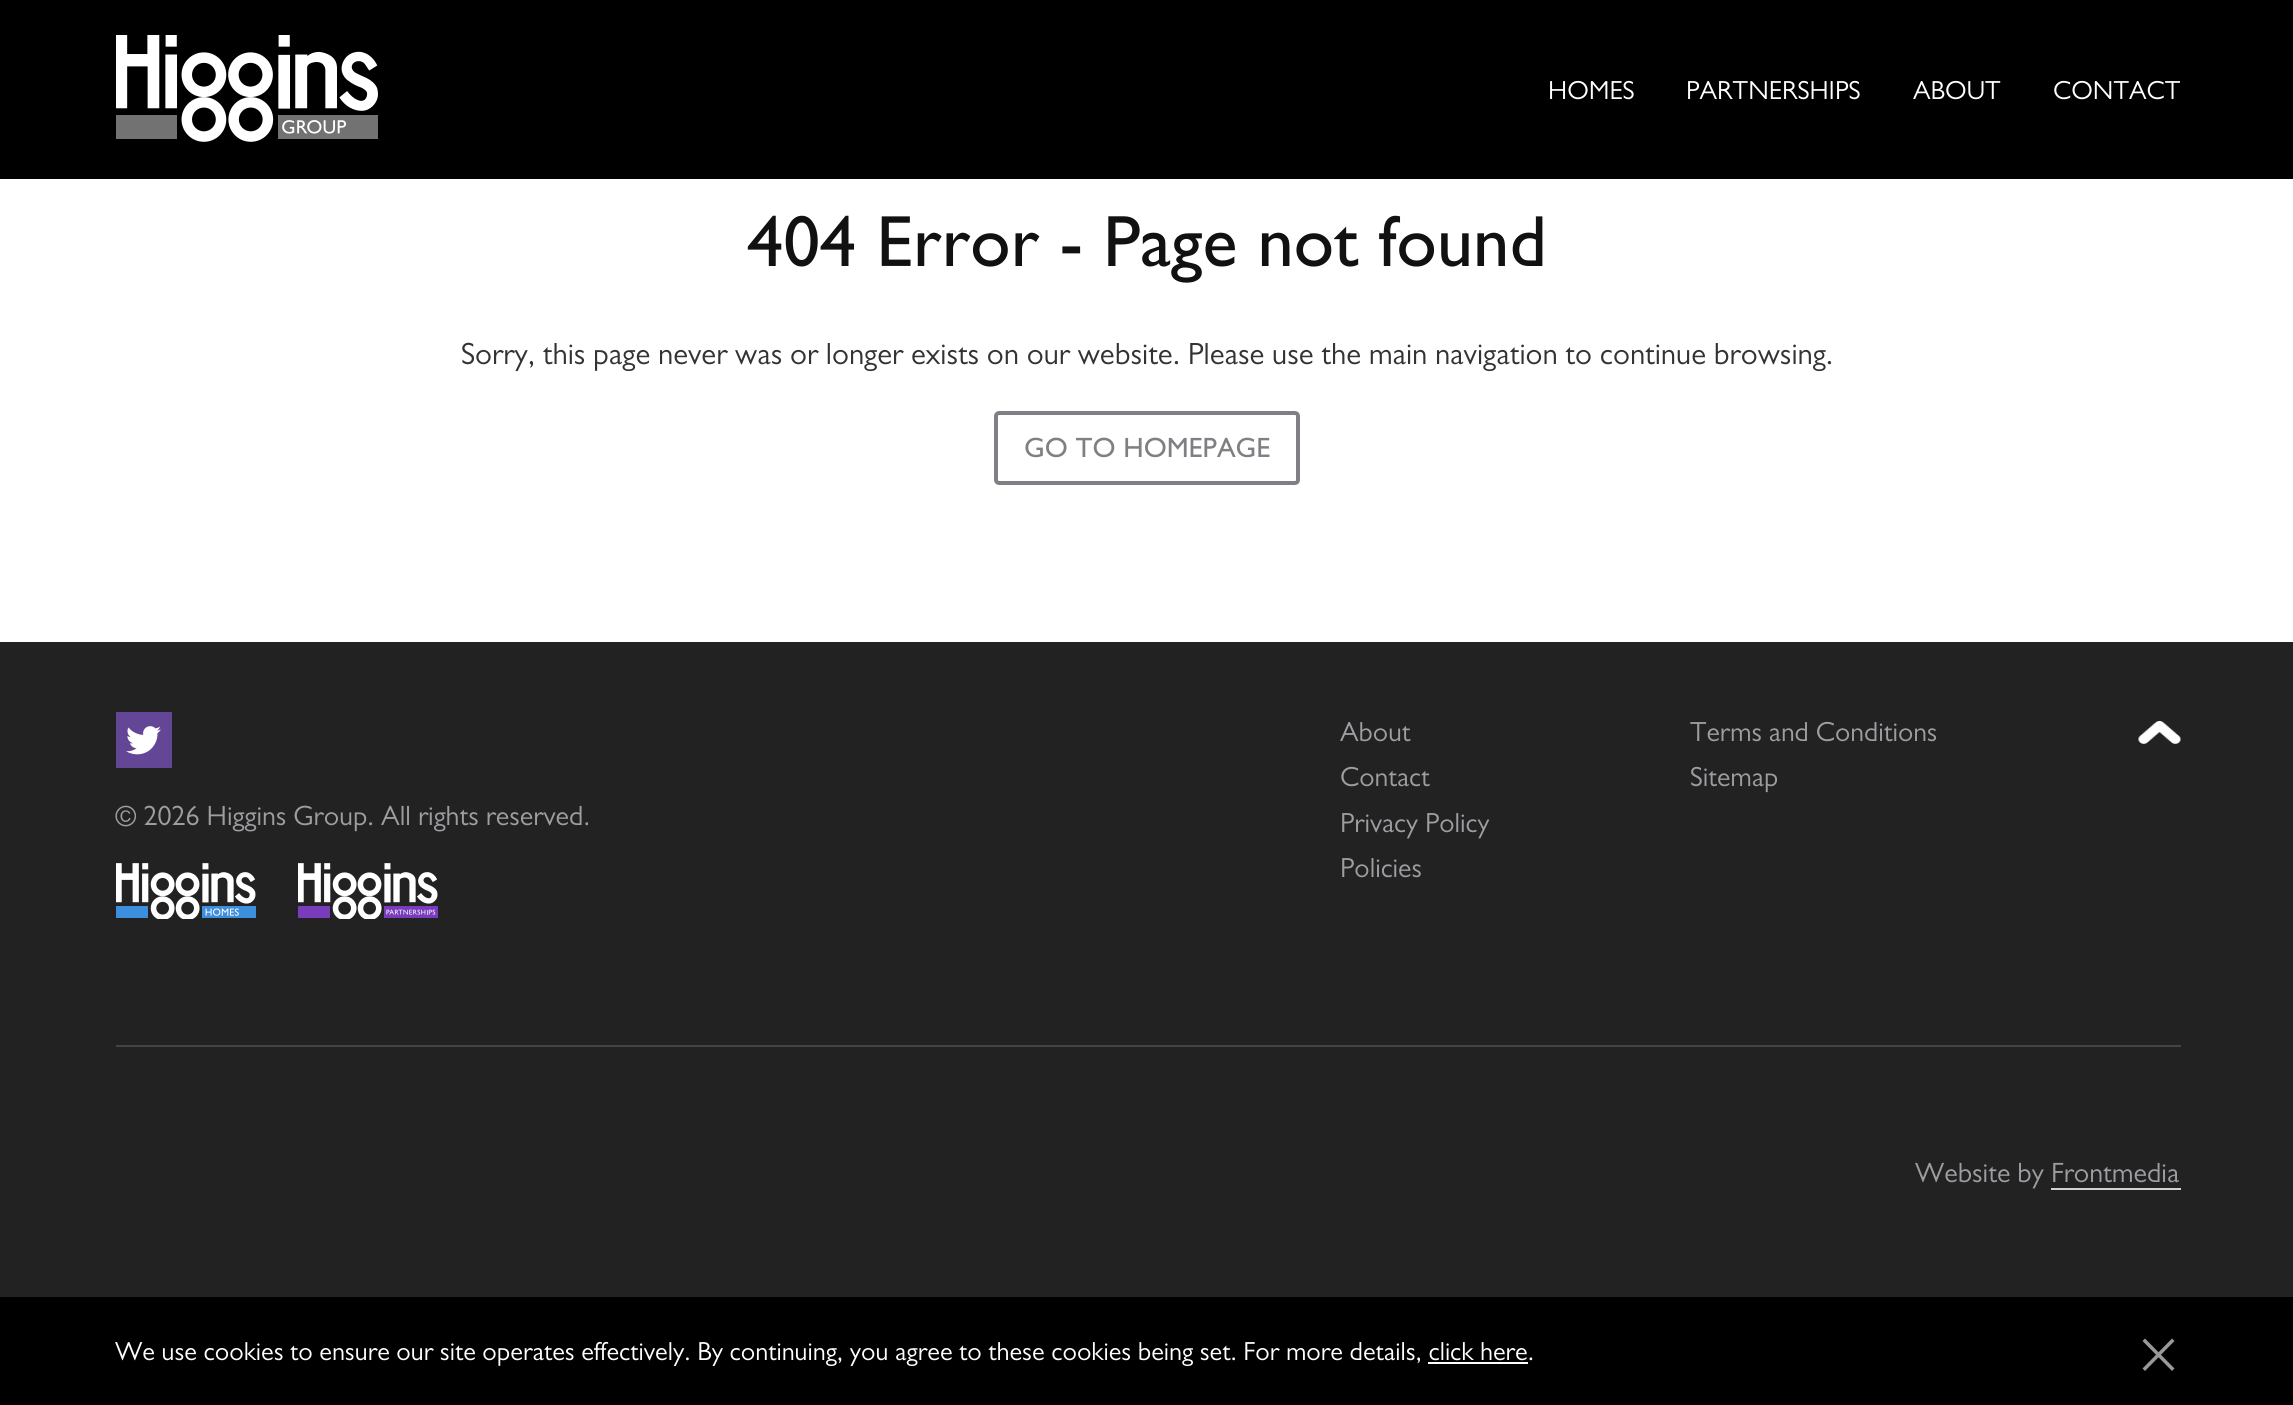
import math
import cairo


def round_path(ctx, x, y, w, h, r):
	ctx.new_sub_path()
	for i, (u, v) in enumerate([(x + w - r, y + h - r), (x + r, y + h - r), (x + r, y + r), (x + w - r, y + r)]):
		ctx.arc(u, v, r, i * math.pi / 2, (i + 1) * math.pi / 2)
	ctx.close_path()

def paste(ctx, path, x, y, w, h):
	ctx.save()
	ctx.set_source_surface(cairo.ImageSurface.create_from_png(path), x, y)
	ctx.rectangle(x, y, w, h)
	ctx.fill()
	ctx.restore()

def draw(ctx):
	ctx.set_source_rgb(0.133, 0.133, 0.133)
	ctx.paint()
	ctx.set_source_rgb(0, 0, 0)
	ctx.rectangle(0, 0, 2293, 179)
	ctx.fill()
	paste(ctx, 'media/1.png', 116, 35, 262, 107)
	ctx.select_font_face('Gill Sans')
	ctx.set_font_size(26.25)
	ctx.set_source_rgb(1, 1, 1)
	for x, y, s in [
		(1548, 99, 'HOMES'),
		(1686, 99, 'PARTNERSHIPS'),
		(1913, 99, 'ABOUT'),
		(2053, 99, 'CONTACT'),
	]:
		ctx.move_to(x, y)
		ctx.show_text(s)
	ctx.rectangle(0, 179, 2293, 463)
	ctx.fill()
	ctx.select_font_face('Gill Sans Medium')
	ctx.set_font_size(72.75)
	ctx.set_source_rgb(0.067, 0.067, 0.067)
	ctx.move_to(747, 266)
	ctx.show_text('404 Error - Page not found')
	ctx.select_font_face('Gill Sans')
	ctx.set_font_size(30.8)
	ctx.set_source_rgb(0.2, 0.2, 0.2)
	ctx.move_to(461, 364)
	ctx.show_text('Sorry, this page never was or longer exists on our website. Please use the main navigation to continue browsing.')
	round_path(ctx, 996, 413, 302, 70, 3)
	ctx.set_source_rgb(0.494, 0.502, 0.514)
	ctx.set_line_width(4)
	ctx.stroke()
	ctx.select_font_face('Gill Sans Medium')
	ctx.set_font_size(28)
	ctx.move_to(1024, 457)
	ctx.show_text('GO TO HOMEPAGE')
	ctx.set_source_rgb(0.388, 0.275, 0.588)
	ctx.rectangle(116, 712, 56, 56)
	ctx.fill()
	paste(ctx, 'media/2.png', 126, 726, 35, 29)
	ctx.select_font_face('Gill Sans')
	ctx.set_source_rgb(0.612, 0.62, 0.631)
	ctx.move_to(115, 825)
	ctx.show_text('© 2026 Higgins Group. All rights reserved.')
	paste(ctx, 'media/3.png', 116, 863, 140, 56)
	paste(ctx, 'media/4.png', 298, 863, 140, 56)
	ctx.set_font_size(27.75)
	for x, y, s in [
		(1340, 741, 'About'),
		(1340, 786, 'Contact'),
		(1340, 832, 'Privacy Policy'),
		(1340, 877, 'Policies'),
		(1690, 741, 'Terms and Conditions'),
		(1690, 786, 'Sitemap'),
	]:
		ctx.move_to(x, y)
		ctx.show_text(s)
	paste(ctx, 'media/5.png', 2138, 721, 43, 23)
	ctx.set_source_rgb(0.267, 0.267, 0.267)
	ctx.rectangle(116, 1045, 2065, 2)
	ctx.fill()
	ctx.set_font_size(28)
	ctx.set_source_rgb(0.612, 0.62, 0.631)
	ctx.move_to(1915, 1182)
	ctx.show_text('Website by Frontmedia')
	ctx.set_source_rgb(0.82, 0.824, 0.82)
	ctx.rectangle(2051, 1188, 130, 2)
	ctx.fill()
	ctx.set_source_rgb(0, 0, 0)
	ctx.rectangle(0, 1297, 2293, 108)
	ctx.fill()
	ctx.set_font_size(26.25)
	ctx.set_source_rgb(1, 1, 1)
	ctx.move_to(115, 1360)
	ctx.show_text('We use cookies to ensure our site operates effectively. By continuing, you agree to these cookies being set. For more details, click here.')
	ctx.rectangle(1428, 1362, 100, 2)
	ctx.fill()
	ctx.set_source_rgb(0.6, 0.6, 0.6)
	ctx.new_path()
	ctx.move_to(2172, 1338.5)
	ctx.line_to(2174.5, 1341)
	ctx.line_to(2145, 1371)
	ctx.line_to(2142.5, 1368.5)
	ctx.close_path()
	ctx.fill()
	ctx.new_path()
	ctx.move_to(2142.5, 1341)
	ctx.line_to(2145, 1338.5)
	ctx.line_to(2174.5, 1368.5)
	ctx.line_to(2172, 1371)
	ctx.close_path()
	ctx.fill()


surface = cairo.ImageSurface(cairo.FORMAT_RGB24, 2293, 1405)
ctx = cairo.Context(surface)
options = cairo.FontOptions()
options.set_hint_metrics(cairo.HINT_METRICS_OFF)
options.set_hint_style(cairo.HINT_STYLE_NONE)
ctx.set_font_options(options)
ctx.set_miter_limit(4)
draw(ctx)
surface.write_to_png('image.png')
